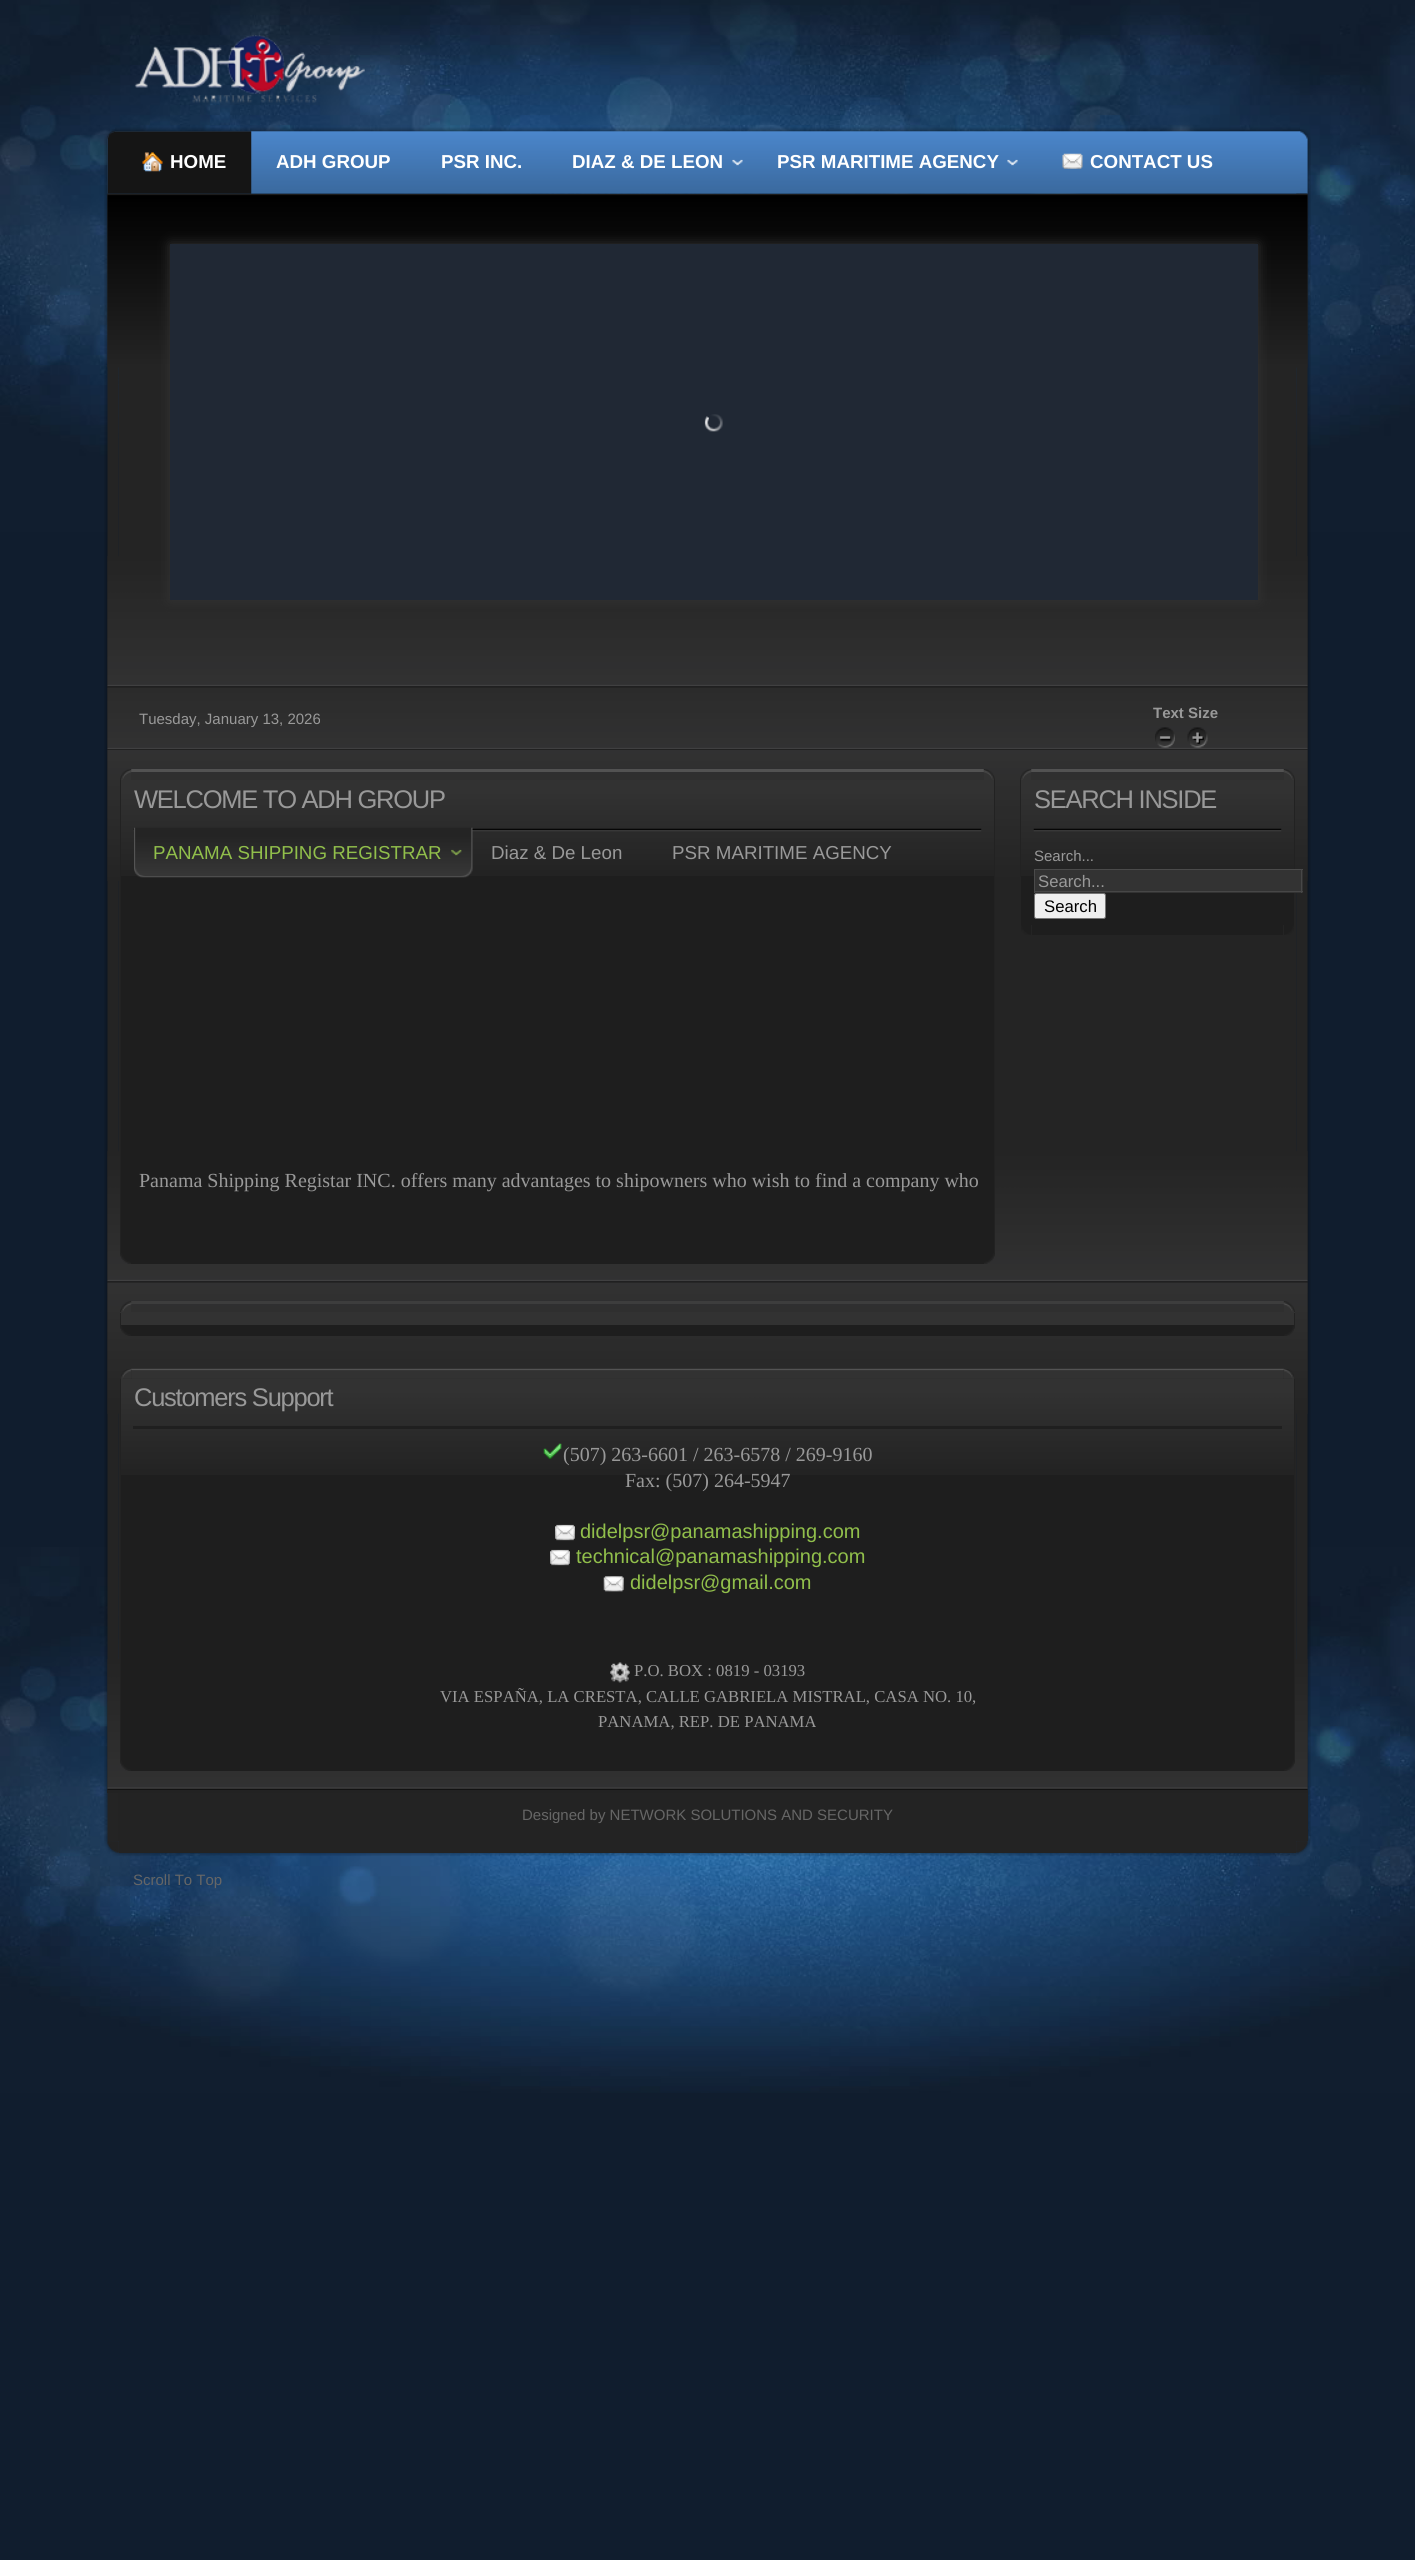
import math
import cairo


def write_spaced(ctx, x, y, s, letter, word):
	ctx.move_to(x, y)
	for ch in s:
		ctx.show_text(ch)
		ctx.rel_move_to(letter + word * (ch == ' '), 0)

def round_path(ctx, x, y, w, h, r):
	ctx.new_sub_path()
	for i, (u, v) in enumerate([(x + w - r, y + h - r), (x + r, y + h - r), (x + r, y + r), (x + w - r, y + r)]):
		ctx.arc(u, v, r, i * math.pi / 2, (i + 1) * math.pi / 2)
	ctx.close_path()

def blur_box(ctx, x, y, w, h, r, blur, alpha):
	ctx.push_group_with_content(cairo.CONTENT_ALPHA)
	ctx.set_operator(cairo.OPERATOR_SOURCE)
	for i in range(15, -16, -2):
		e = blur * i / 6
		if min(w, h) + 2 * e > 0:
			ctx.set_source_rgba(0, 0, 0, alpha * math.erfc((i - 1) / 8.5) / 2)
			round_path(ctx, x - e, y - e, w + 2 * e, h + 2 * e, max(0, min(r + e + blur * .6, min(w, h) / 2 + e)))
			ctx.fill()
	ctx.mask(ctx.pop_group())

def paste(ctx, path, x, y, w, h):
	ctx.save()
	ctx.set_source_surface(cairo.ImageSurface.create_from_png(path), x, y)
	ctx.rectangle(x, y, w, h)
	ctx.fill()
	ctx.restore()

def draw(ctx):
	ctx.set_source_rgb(0.063, 0.114, 0.18)
	ctx.paint()
	paste(ctx, 'media/1.png', 0, 1547, 1415, 546)
	paste(ctx, 'media/2.png', 0, 0, 1415, 532)
	paste(ctx, 'media/3.png', 134, 35, 231, 68)
	paste(ctx, 'media/12.png', 104, 193, 15, 1649)
	paste(ctx, 'media/4.png', 115, 127, 1185, 67)
	paste(ctx, 'media/5.png', 104, 129, 11, 65)
	paste(ctx, 'media/6.png', 1300, 129, 11, 65)
	ctx.set_source_rgb(0.141, 0.141, 0.141)
	ctx.rectangle(119, 367, 1177, 1292)
	ctx.fill()
	paste(ctx, 'media/53.png', 118, 1841, 1179, 15)
	paste(ctx, 'media/55.png', 1296, 1841, 15, 15)
	paste(ctx, 'media/13.png', 1296, 193, 15, 1649)
	paste(ctx, 'media/15.png', 107, 193, 1201, 175)
	paste(ctx, 'media/7.png', 107, 131, 145, 63)
	paste(ctx, 'media/8.png', 142, 152, 21, 20)
	ctx.select_font_face('Liberation Sans', cairo.FONT_SLANT_NORMAL, cairo.FONT_WEIGHT_BOLD)
	ctx.set_font_size(18.75)
	ctx.set_source_rgb(1, 1, 1)
	for x, y, s in [
		(170, 168, 'HOME'),
		(276, 168, 'ADH GROUP'),
		(441, 168, 'PSR INC.'),
	]:
		ctx.move_to(x, y)
		ctx.show_text(s)
	paste(ctx, 'media/9.png', 732, 159, 11, 7)
	ctx.move_to(572, 168)
	ctx.show_text('DIAZ & DE LEON')
	paste(ctx, 'media/10.png', 1007, 159, 11, 7)
	ctx.move_to(777, 168)
	ctx.show_text('PSR MARITIME AGENCY')
	paste(ctx, 'media/11.png', 1062, 153, 21, 16)
	ctx.move_to(1090, 168)
	ctx.show_text('CONTACT US')
	paste(ctx, 'media/14.png', 107, 556, 1201, 132)
	ctx.set_source_rgb(0.2, 0.2, 0.2)
	blur_box(ctx, 170, 244, 1088, 356, 0, 6, 1)
	ctx.set_source_rgb(0.125, 0.157, 0.204)
	ctx.rectangle(170, 244, 1088, 356)
	ctx.fill()
	paste(ctx, 'media/16.png', 704, 414, 19, 18)
	paste(ctx, 'media/17.png', 107, 687, 1201, 63)
	ctx.select_font_face('Liberation Sans')
	ctx.set_font_size(15)
	ctx.set_source_rgb(0.6, 0.6, 0.6)
	ctx.move_to(139, 724)
	ctx.show_text('Tuesday, January 13, 2026')
	ctx.select_font_face('Liberation Sans', cairo.FONT_SLANT_NORMAL, cairo.FONT_WEIGHT_BOLD)
	ctx.move_to(1153, 718)
	ctx.show_text('Text Size')
	paste(ctx, 'media/18.png', 1155, 727, 20, 21)
	paste(ctx, 'media/19.png', 1187, 727, 21, 21)
	paste(ctx, 'media/20.png', 107, 1151, 1201, 132)
	paste(ctx, 'media/21.png', 107, 750, 1201, 131)
	ctx.set_source_rgb(0.322, 0.322, 0.322)
	ctx.rectangle(131, 769, 853, 3)
	ctx.fill()
	paste(ctx, 'media/22.png', 120, 769, 12, 11)
	paste(ctx, 'media/23.png', 983, 769, 12, 11)
	ctx.set_source_rgb(0.118, 0.118, 0.118)
	ctx.rectangle(121, 876, 873, 377)
	ctx.fill()
	paste(ctx, 'media/24.png', 121, 780, 873, 96)
	ctx.set_source_rgb(0.133, 0.133, 0.133)
	ctx.rectangle(994, 780, 1, 473)
	ctx.fill()
	ctx.rectangle(120, 780, 1, 473)
	ctx.fill()
	paste(ctx, 'media/25.png', 133, 828, 849, 4)
	ctx.select_font_face('Liberation Sans')
	ctx.set_font_size(25.5)
	ctx.set_source_rgb(0.6, 0.6, 0.6)
	write_spaced(ctx, 134, 808, 'WELCOME TO ADH GROUP', -1.25, 0)
	paste(ctx, 'media/26.png', 145, 827, 328, 51)
	paste(ctx, 'media/27.png', 134, 827, 11, 51)
	ctx.set_font_size(18.75)
	ctx.set_source_rgb(0.569, 0.749, 0.294)
	ctx.move_to(153, 859)
	ctx.show_text('PANAMA SHIPPING REGISTRAR')
	ctx.set_source_rgb(0.6, 0.6, 0.6)
	ctx.move_to(491, 859)
	ctx.show_text('Diaz & De Leon')
	ctx.move_to(672, 859)
	ctx.show_text('PSR MARITIME AGENCY')
	ctx.select_font_face('Liberation Serif')
	ctx.set_font_size(20)
	ctx.move_to(139, 1187)
	ctx.show_text('Panama Shipping Registar INC. offers many advantages to shipowners who wish to find a company who')
	ctx.set_source_rgb(0.118, 0.118, 0.118)
	ctx.rectangle(131, 1253, 853, 11)
	ctx.fill()
	paste(ctx, 'media/28.png', 120, 1253, 11, 11)
	paste(ctx, 'media/29.png', 984, 1253, 11, 11)
	ctx.set_source_rgb(0.322, 0.322, 0.322)
	ctx.rectangle(1031, 769, 253, 3)
	ctx.fill()
	paste(ctx, 'media/22.png', 1020, 769, 12, 11)
	paste(ctx, 'media/30.png', 1283, 769, 12, 11)
	ctx.set_source_rgb(0.118, 0.118, 0.118)
	ctx.rectangle(1021, 876, 273, 49)
	ctx.fill()
	paste(ctx, 'media/31.png', 1021, 780, 273, 96)
	ctx.set_source_rgb(0.133, 0.133, 0.133)
	ctx.rectangle(1294, 780, 1, 97)
	ctx.fill()
	ctx.rectangle(1020, 780, 1, 97)
	ctx.fill()
	paste(ctx, 'media/32.png', 1033, 828, 249, 4)
	ctx.select_font_face('Liberation Sans')
	ctx.set_font_size(25.5)
	ctx.set_source_rgb(0.6, 0.6, 0.6)
	write_spaced(ctx, 1034, 808, 'SEARCH INSIDE', -1.25, 0)
	ctx.set_font_size(15)
	ctx.move_to(1034, 861)
	ctx.show_text('Search...')
	ctx.set_source_rgb(0.2, 0.2, 0.2)
	ctx.rectangle(1035, 870, 268, 23)
	ctx.fill()
	ctx.set_source_rgb(0.29, 0.29, 0.29)
	ctx.rectangle(1034, 869, 269, 1)
	ctx.fill()
	ctx.set_source_rgb(0.278, 0.278, 0.278)
	ctx.rectangle(1301, 869, 1, 24)
	ctx.rectangle(1034, 891, 269, 1)
	ctx.fill()
	ctx.set_source_rgb(0.29, 0.29, 0.29)
	ctx.rectangle(1034, 869, 1, 24)
	ctx.fill()
	ctx.set_font_size(16.7)
	ctx.set_source_rgb(0.6, 0.6, 0.6)
	ctx.move_to(1038, 887)
	ctx.show_text('Search...')
	ctx.set_source_rgb(0.937, 0.937, 0.937)
	round_path(ctx, 1034.5, 893.5, 71, 25, 2)
	ctx.fill_preserve()
	ctx.set_source_rgb(0.463, 0.463, 0.463)
	ctx.set_line_width(1)
	ctx.stroke()
	ctx.set_source_rgb(0, 0, 0)
	ctx.move_to(1044, 912)
	ctx.show_text('Search')
	ctx.set_source_rgb(0.118, 0.118, 0.118)
	ctx.rectangle(1032, 925, 251, 10)
	ctx.fill()
	paste(ctx, 'media/33.png', 1021, 925, 10, 10)
	paste(ctx, 'media/34.png', 1284, 925, 10, 10)
	paste(ctx, 'media/35.png', 107, 1282, 1201, 132)
	paste(ctx, 'media/36.png', 107, 1659, 1201, 131)
	ctx.set_source_rgb(0.239, 0.239, 0.239)
	ctx.rectangle(131, 1301, 1153, 3)
	ctx.fill()
	paste(ctx, 'media/37.png', 120, 1301, 12, 11)
	paste(ctx, 'media/38.png', 1283, 1301, 12, 11)
	ctx.set_source_rgb(0.196, 0.196, 0.196)
	ctx.rectangle(120, 1312, 1175, 13)
	ctx.fill()
	ctx.set_source_rgb(0.133, 0.133, 0.133)
	ctx.rectangle(1294, 1313, 1, 12)
	ctx.rectangle(120, 1313, 1, 12)
	ctx.fill()
	ctx.set_source_rgb(0.118, 0.118, 0.118)
	ctx.rectangle(131, 1325, 1153, 11)
	ctx.fill()
	paste(ctx, 'media/39.png', 120, 1325, 11, 11)
	paste(ctx, 'media/40.png', 1284, 1325, 11, 11)
	paste(ctx, 'media/41.png', 131, 1368, 1153, 11)
	paste(ctx, 'media/42.png', 121, 1369, 10, 10)
	paste(ctx, 'media/43.png', 1284, 1369, 10, 10)
	ctx.rectangle(121, 1475, 1173, 285)
	ctx.fill()
	paste(ctx, 'media/44.png', 121, 1379, 1173, 96)
	ctx.set_source_rgb(0.133, 0.133, 0.133)
	ctx.rectangle(1294, 1379, 1, 381)
	ctx.rectangle(120, 1379, 1, 381)
	ctx.fill()
	ctx.set_source_rgb(0.122, 0.122, 0.122)
	ctx.rectangle(133, 1426, 1149, 3)
	ctx.fill()
	ctx.set_font_size(25.5)
	ctx.set_source_rgb(0.6, 0.6, 0.6)
	write_spaced(ctx, 134, 1406, 'Customers Support', -1.25, 0)
	paste(ctx, 'media/45.png', 543, 1443, 19, 16)
	ctx.select_font_face('Liberation Serif')
	ctx.set_font_size(20)
	ctx.move_to(563, 1461)
	ctx.show_text('(507) 263-6601 / 263-6578 / 269-9160')
	ctx.move_to(625, 1487)
	ctx.show_text('Fax: (507) 264-5947')
	paste(ctx, 'media/46.png', 555, 1524, 20, 17)
	ctx.select_font_face('Liberation Sans')
	ctx.set_source_rgb(0.569, 0.749, 0.294)
	ctx.move_to(580, 1538)
	ctx.show_text('didelpsr@panamashipping.com')
	paste(ctx, 'media/46.png', 550, 1549, 20, 17)
	ctx.move_to(576, 1563)
	ctx.show_text('technical@panamashipping.com')
	paste(ctx, 'media/47.png', 603, 1576, 21, 16)
	ctx.move_to(630, 1589)
	ctx.show_text('didelpsr@gmail.com')
	paste(ctx, 'media/48.png', 610, 1662, 20, 21)
	ctx.select_font_face('Liberation Serif')
	ctx.set_font_size(16.7)
	ctx.set_source_rgb(0.6, 0.6, 0.6)
	for x, y, s in [
		(634, 1676, 'P.O. BOX : 0819 - 03193'),
		(440, 1702, 'VIA ESPAÑA, LA CRESTA, CALLE GABRIELA MISTRAL, CASA NO. 10,'),
		(598, 1727, 'PANAMA, REP. DE PANAMA'),
	]:
		ctx.move_to(x, y)
		ctx.show_text(s)
	ctx.set_source_rgb(0.118, 0.118, 0.118)
	ctx.rectangle(131, 1760, 1153, 11)
	ctx.fill()
	paste(ctx, 'media/49.png', 120, 1760, 11, 11)
	paste(ctx, 'media/50.png', 1284, 1760, 11, 11)
	ctx.set_source_rgb(0.137, 0.137, 0.137)
	ctx.rectangle(118, 1793, 1190, 48)
	ctx.fill()
	ctx.set_source_rgb(0.133, 0.133, 0.133)
	ctx.rectangle(107, 1790, 1201, 3)
	ctx.fill()
	ctx.select_font_face('Liberation Sans')
	ctx.set_font_size(15)
	ctx.set_source_rgb(0.4, 0.4, 0.4)
	ctx.move_to(522, 1820)
	ctx.show_text('Designed by NETWORK SOLUTIONS AND SECURITY')
	ctx.set_source_rgb(0.137, 0.137, 0.137)
	ctx.rectangle(119, 1841, 1177, 12)
	ctx.fill()
	paste(ctx, 'media/54.png', 104, 1841, 15, 15)
	paste(ctx, 'media/51.png', 107, 1841, 12, 12)
	paste(ctx, 'media/52.png', 1296, 1841, 12, 12)
	ctx.set_source_rgb(0.4, 0.4, 0.4)
	ctx.move_to(133, 1885)
	ctx.show_text('Scroll To Top')


surface = cairo.ImageSurface(cairo.FORMAT_RGB24, 1415, 2560)
ctx = cairo.Context(surface)
options = cairo.FontOptions()
options.set_hint_metrics(cairo.HINT_METRICS_OFF)
options.set_hint_style(cairo.HINT_STYLE_NONE)
ctx.set_font_options(options)
ctx.set_miter_limit(4)
draw(ctx)
surface.write_to_png('image.png')
